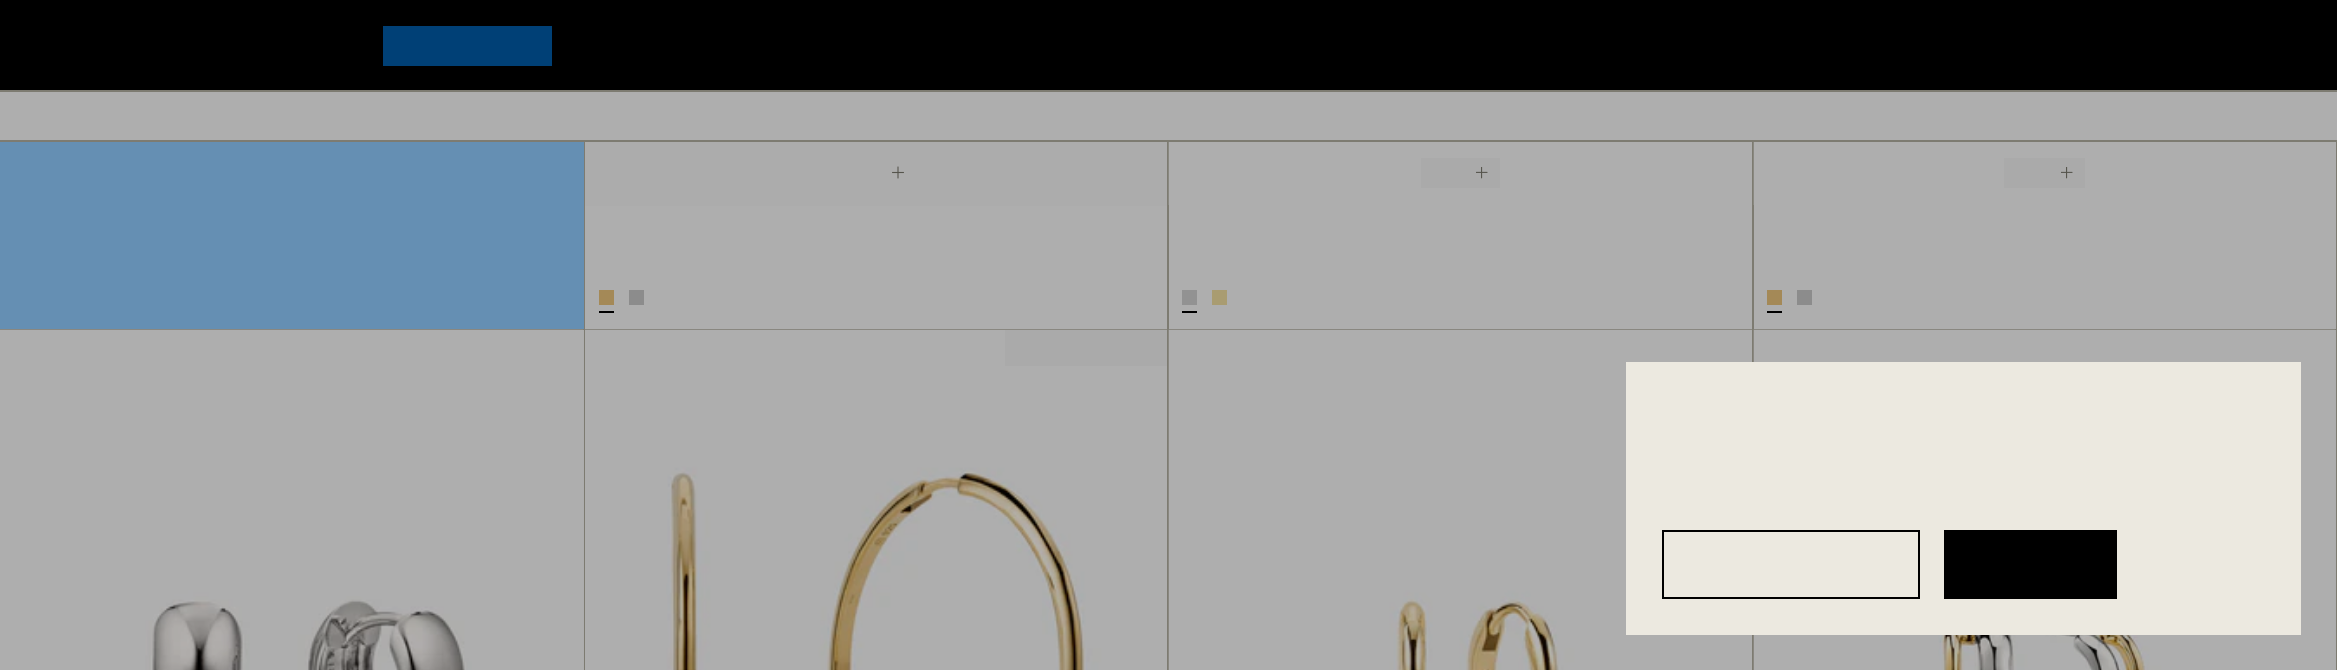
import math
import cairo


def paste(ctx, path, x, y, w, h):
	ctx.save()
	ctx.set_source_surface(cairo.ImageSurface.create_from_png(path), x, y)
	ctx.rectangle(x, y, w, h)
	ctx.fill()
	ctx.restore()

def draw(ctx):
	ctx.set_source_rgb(0.49, 0.482, 0.443)
	ctx.paint()
	ctx.set_source_rgb(0, 0, 0)
	ctx.rectangle(0, 0, 2337, 90)
	ctx.fill()
	ctx.set_source_rgb(0, 0.251, 0.463)
	ctx.rectangle(383, 26, 169, 40)
	ctx.fill()
	ctx.set_source_rgb(0.682, 0.682, 0.682)
	ctx.rectangle(0, 92, 2337, 48)
	ctx.fill()
	ctx.set_source_rgb(0.396, 0.561, 0.702)
	ctx.rectangle(0, 142, 584, 187)
	ctx.fill()
	ctx.set_source_rgb(0.675, 0.675, 0.675)
	ctx.rectangle(585, 142, 582, 64)
	ctx.fill()
	ctx.new_path()
	ctx.move_to(898, 167)
	ctx.line_to(898, 178)
	ctx.move_to(892.5, 172.5)
	ctx.line_to(903.5, 172.5)
	ctx.set_source_rgb(0.333, 0.329, 0.298)
	ctx.set_line_width(1.1)
	ctx.set_line_cap(cairo.LINE_CAP_ROUND)
	ctx.stroke()
	ctx.set_source_rgb(0.682, 0.682, 0.682)
	ctx.rectangle(585, 206, 582, 123)
	ctx.fill()
	ctx.set_source_rgb(0.643, 0.537, 0.341)
	ctx.rectangle(599, 290, 15, 15)
	ctx.fill()
	ctx.set_source_rgb(0, 0, 0)
	ctx.rectangle(599, 311, 15, 2)
	ctx.fill()
	ctx.set_source_rgb(0.549, 0.549, 0.549)
	ctx.rectangle(629, 290, 15, 15)
	ctx.fill()
	ctx.set_source_rgb(0.537, 0.533, 0.502)
	ctx.rectangle(1168, 142, 1, 63)
	ctx.fill()
	ctx.set_source_rgb(0.682, 0.682, 0.682)
	ctx.rectangle(1169, 142, 583, 187)
	ctx.fill()
	ctx.set_source_rgb(0.667, 0.667, 0.667)
	ctx.rectangle(1421, 158, 79, 30)
	ctx.fill()
	paste(ctx, 'media/1.png', 1476, 167, 12, 12)
	ctx.set_source_rgb(0.573, 0.573, 0.573)
	ctx.rectangle(1182, 290, 15, 15)
	ctx.fill()
	ctx.set_source_rgb(0, 0, 0)
	ctx.rectangle(1182, 311, 15, 2)
	ctx.fill()
	ctx.set_source_rgb(0.663, 0.612, 0.443)
	ctx.rectangle(1212, 290, 15, 15)
	ctx.fill()
	ctx.set_source_rgb(0.537, 0.533, 0.502)
	ctx.rectangle(1753, 142, 1, 63)
	ctx.fill()
	ctx.set_source_rgb(0.682, 0.682, 0.682)
	ctx.rectangle(1754, 142, 582, 187)
	ctx.fill()
	ctx.set_source_rgb(0.667, 0.667, 0.667)
	ctx.rectangle(2004, 158, 81, 30)
	ctx.fill()
	paste(ctx, 'media/1.png', 2061, 167, 12, 12)
	ctx.set_source_rgb(0.643, 0.537, 0.341)
	ctx.rectangle(1767, 290, 15, 15)
	ctx.fill()
	ctx.set_source_rgb(0, 0, 0)
	ctx.rectangle(1767, 311, 15, 2)
	ctx.fill()
	ctx.set_source_rgb(0.549, 0.549, 0.549)
	ctx.rectangle(1797, 290, 15, 15)
	ctx.fill()
	ctx.set_source_rgb(0.682, 0.682, 0.682)
	ctx.rectangle(583, 330, 1, 340)
	ctx.fill()
	paste(ctx, 'media/2.png', 0, 329, 584, 341)
	paste(ctx, 'media/3.png', 585, 329, 582, 341)
	ctx.set_source_rgb(0.667, 0.667, 0.667)
	ctx.rectangle(1005, 330, 162, 36)
	ctx.fill()
	paste(ctx, 'media/4.png', 1168, 329, 584, 341)
	ctx.set_source_rgb(0.682, 0.682, 0.682)
	ctx.rectangle(2335, 330, 1, 340)
	ctx.fill()
	paste(ctx, 'media/5.png', 1753, 329, 583, 341)
	ctx.set_source_rgb(0.925, 0.914, 0.878)
	ctx.rectangle(1626, 362, 675, 273)
	ctx.fill()
	ctx.rectangle(1663, 531, 256, 67)
	ctx.set_source_rgb(0, 0, 0)
	ctx.set_line_width(2)
	ctx.set_line_cap(cairo.LINE_CAP_BUTT)
	ctx.stroke()
	ctx.rectangle(1944, 530, 173, 69)
	ctx.fill()


surface = cairo.ImageSurface(cairo.FORMAT_RGB24, 2337, 670)
ctx = cairo.Context(surface)
options = cairo.FontOptions()
options.set_hint_metrics(cairo.HINT_METRICS_OFF)
options.set_hint_style(cairo.HINT_STYLE_NONE)
ctx.set_font_options(options)
ctx.set_miter_limit(4)
draw(ctx)
surface.write_to_png('image.png')
